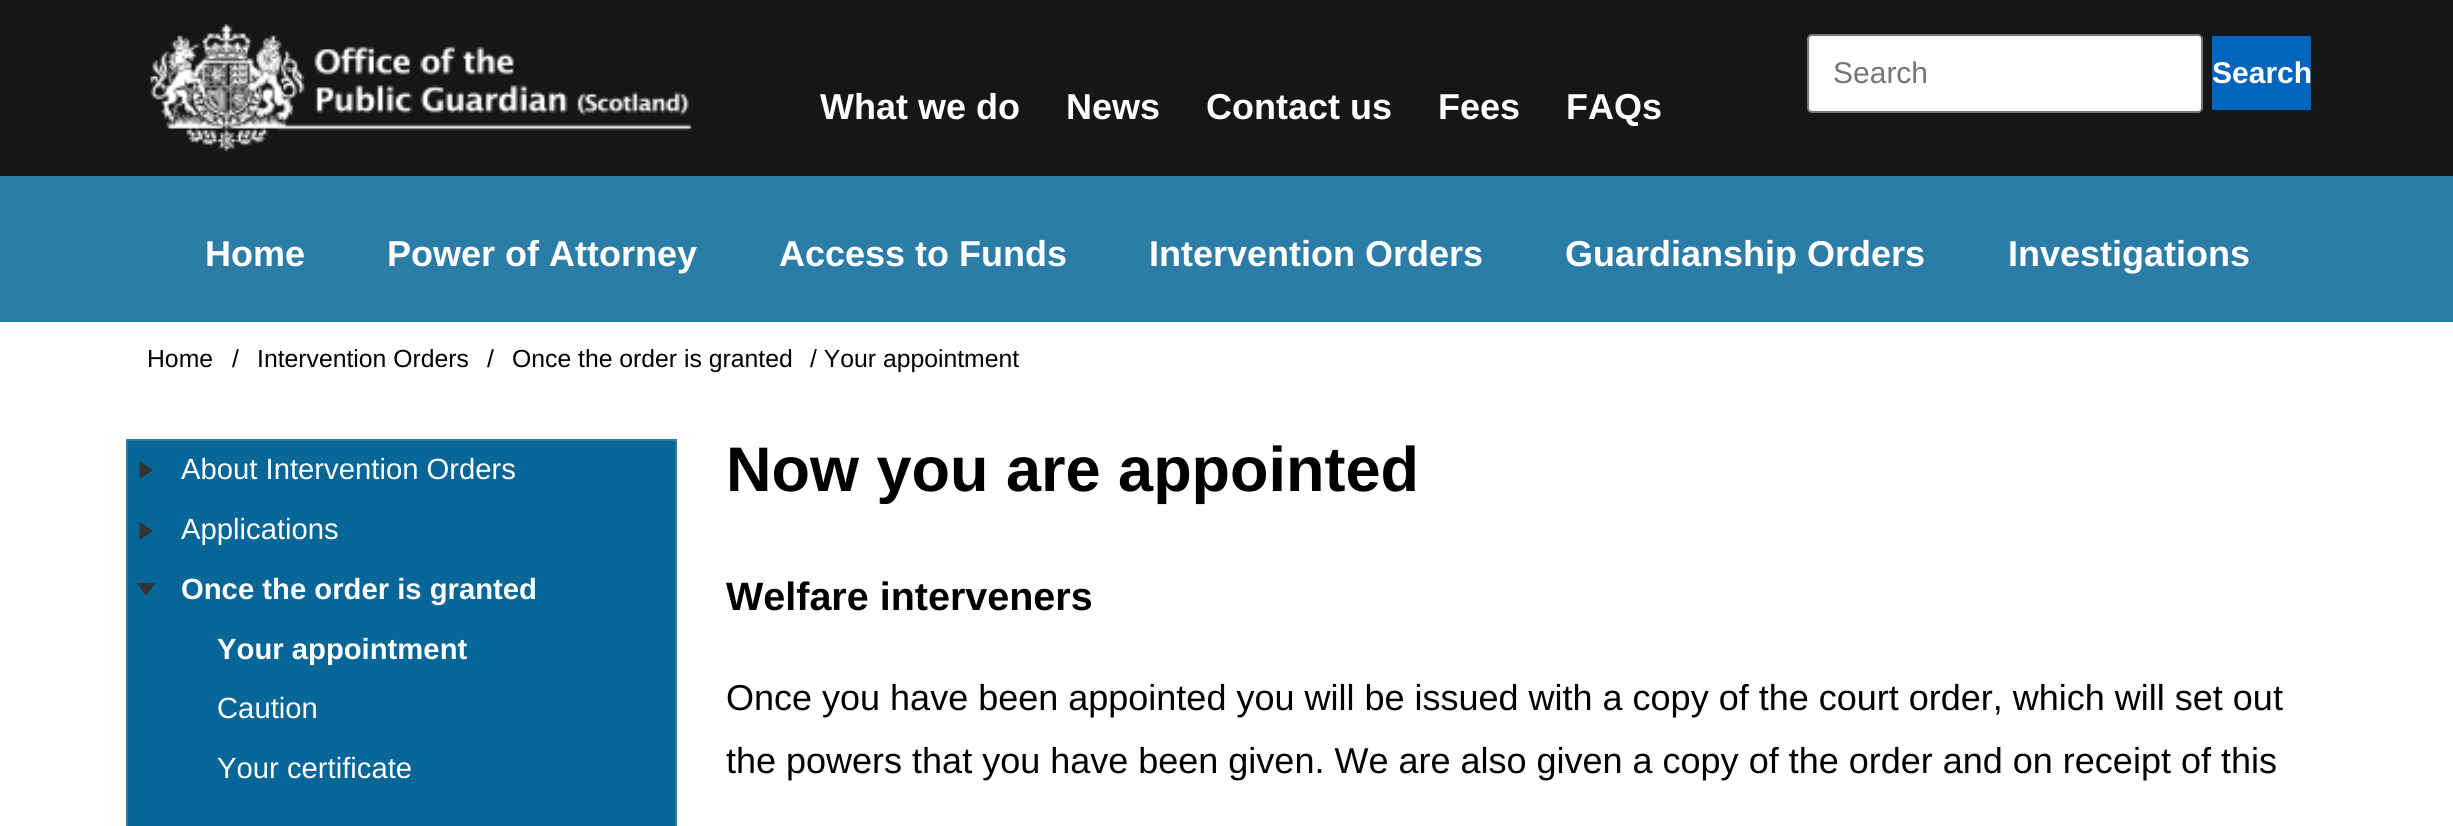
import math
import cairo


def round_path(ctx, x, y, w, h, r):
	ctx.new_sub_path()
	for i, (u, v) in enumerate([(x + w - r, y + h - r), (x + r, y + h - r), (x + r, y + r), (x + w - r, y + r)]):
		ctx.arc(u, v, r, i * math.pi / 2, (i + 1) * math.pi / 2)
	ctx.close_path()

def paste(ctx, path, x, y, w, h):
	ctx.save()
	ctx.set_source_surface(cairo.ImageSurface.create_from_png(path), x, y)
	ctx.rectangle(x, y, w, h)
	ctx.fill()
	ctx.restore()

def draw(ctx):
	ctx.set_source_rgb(0.086, 0.086, 0.086)
	ctx.paint()
	paste(ctx, 'media/1.png', 150, 24, 542, 128)
	ctx.set_source_rgb(1, 1, 1)
	round_path(ctx, 1808, 35, 394, 77, 4)
	ctx.fill_preserve()
	ctx.set_source_rgb(0.463, 0.463, 0.463)
	ctx.stroke()
	ctx.select_font_face('Liberation Sans')
	ctx.set_font_size(30)
	ctx.set_source_rgb(0.459, 0.459, 0.459)
	ctx.move_to(1833, 83)
	ctx.show_text('Search')
	ctx.set_source_rgb(0, 0.396, 0.741)
	ctx.rectangle(2212, 36, 99, 74)
	ctx.fill()
	ctx.select_font_face('Liberation Sans', cairo.FONT_SLANT_NORMAL, cairo.FONT_WEIGHT_BOLD)
	ctx.set_source_rgb(1, 1, 1)
	ctx.move_to(2212, 83)
	ctx.show_text('Search')
	ctx.set_font_size(36)
	for x, y, s in [
		(820, 119, 'What we do'),
		(1066, 119, 'News'),
		(1206, 119, 'Contact us'),
		(1438, 119, 'Fees'),
		(1566, 119, 'FAQs'),
	]:
		ctx.move_to(x, y)
		ctx.show_text(s)
	ctx.set_source_rgb(0.169, 0.49, 0.655)
	ctx.rectangle(0, 176, 2453, 146)
	ctx.fill()
	ctx.set_source_rgb(1, 1, 1)
	for x, y, s in [
		(205, 266, 'Home'),
		(387, 266, 'Power of Attorney'),
		(779, 266, 'Access to Funds'),
		(1149, 266, 'Intervention Orders'),
		(1565, 266, 'Guardianship Orders'),
		(2008, 266, 'Investigations'),
	]:
		ctx.move_to(x, y)
		ctx.show_text(s)
	ctx.rectangle(0, 322, 2453, 504)
	ctx.fill()
	ctx.select_font_face('Liberation Sans')
	ctx.set_font_size(24.75)
	ctx.set_source_rgb(0, 0, 0)
	for x, y, s in [
		(147, 367, 'Home'),
		(232, 367, '/'),
		(257, 367, 'Intervention Orders'),
		(487, 367, '/'),
		(512, 367, 'Once the order is granted'),
		(810, 367, '/ Your appointment'),
	]:
		ctx.move_to(x, y)
		ctx.show_text(s)
	ctx.set_source_rgb(0.024, 0.4, 0.596)
	ctx.rectangle(127, 440, 549, 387)
	ctx.fill_preserve()
	ctx.set_source_rgb(0.169, 0.49, 0.655)
	ctx.stroke()
	ctx.set_source_rgb(0.2, 0.2, 0.2)
	ctx.new_path()
	ctx.move_to(153, 470)
	ctx.line_to(139.5, 479)
	ctx.line_to(139.5, 461)
	ctx.close_path()
	ctx.fill()
	ctx.set_font_size(29.25)
	ctx.set_source_rgb(1, 1, 1)
	ctx.move_to(181, 479)
	ctx.show_text('About Intervention Orders')
	ctx.set_source_rgb(0.2, 0.2, 0.2)
	ctx.new_path()
	ctx.move_to(153, 531)
	ctx.line_to(139.5, 540)
	ctx.line_to(139.5, 522)
	ctx.close_path()
	ctx.fill()
	ctx.set_source_rgb(1, 1, 1)
	ctx.move_to(181, 539)
	ctx.show_text('Applications')
	ctx.set_source_rgb(0.2, 0.2, 0.2)
	ctx.new_path()
	ctx.move_to(146, 596)
	ctx.line_to(137, 583)
	ctx.line_to(155, 583)
	ctx.close_path()
	ctx.fill()
	ctx.select_font_face('Liberation Sans', cairo.FONT_SLANT_NORMAL, cairo.FONT_WEIGHT_BOLD)
	ctx.set_source_rgb(1, 1, 1)
	ctx.move_to(181, 599)
	ctx.show_text('Once the order is granted')
	ctx.move_to(217, 659)
	ctx.show_text('Your appointment')
	ctx.select_font_face('Liberation Sans')
	ctx.move_to(217, 718)
	ctx.show_text('Caution')
	ctx.move_to(217, 778)
	ctx.show_text('Your certificate')
	ctx.select_font_face('Liberation Sans', cairo.FONT_SLANT_NORMAL, cairo.FONT_WEIGHT_BOLD)
	ctx.set_font_size(63)
	ctx.set_source_rgb(0, 0, 0)
	ctx.move_to(726, 491)
	ctx.show_text('Now you are appointed')
	ctx.set_font_size(39.5)
	ctx.move_to(726, 610)
	ctx.show_text('Welfare interveners')
	ctx.select_font_face('Liberation Sans')
	ctx.set_font_size(36)
	ctx.move_to(726, 710)
	ctx.show_text('Once you have been appointed you will be issued with a copy of the court order, which will set out')
	ctx.move_to(726, 773)
	ctx.show_text('the powers that you have been given. We are also given a copy of the order and on receipt of this')


surface = cairo.ImageSurface(cairo.FORMAT_RGB24, 2453, 826)
ctx = cairo.Context(surface)
options = cairo.FontOptions()
options.set_hint_metrics(cairo.HINT_METRICS_OFF)
options.set_hint_style(cairo.HINT_STYLE_NONE)
ctx.set_font_options(options)
ctx.set_miter_limit(4)
draw(ctx)
surface.write_to_png('image.png')
